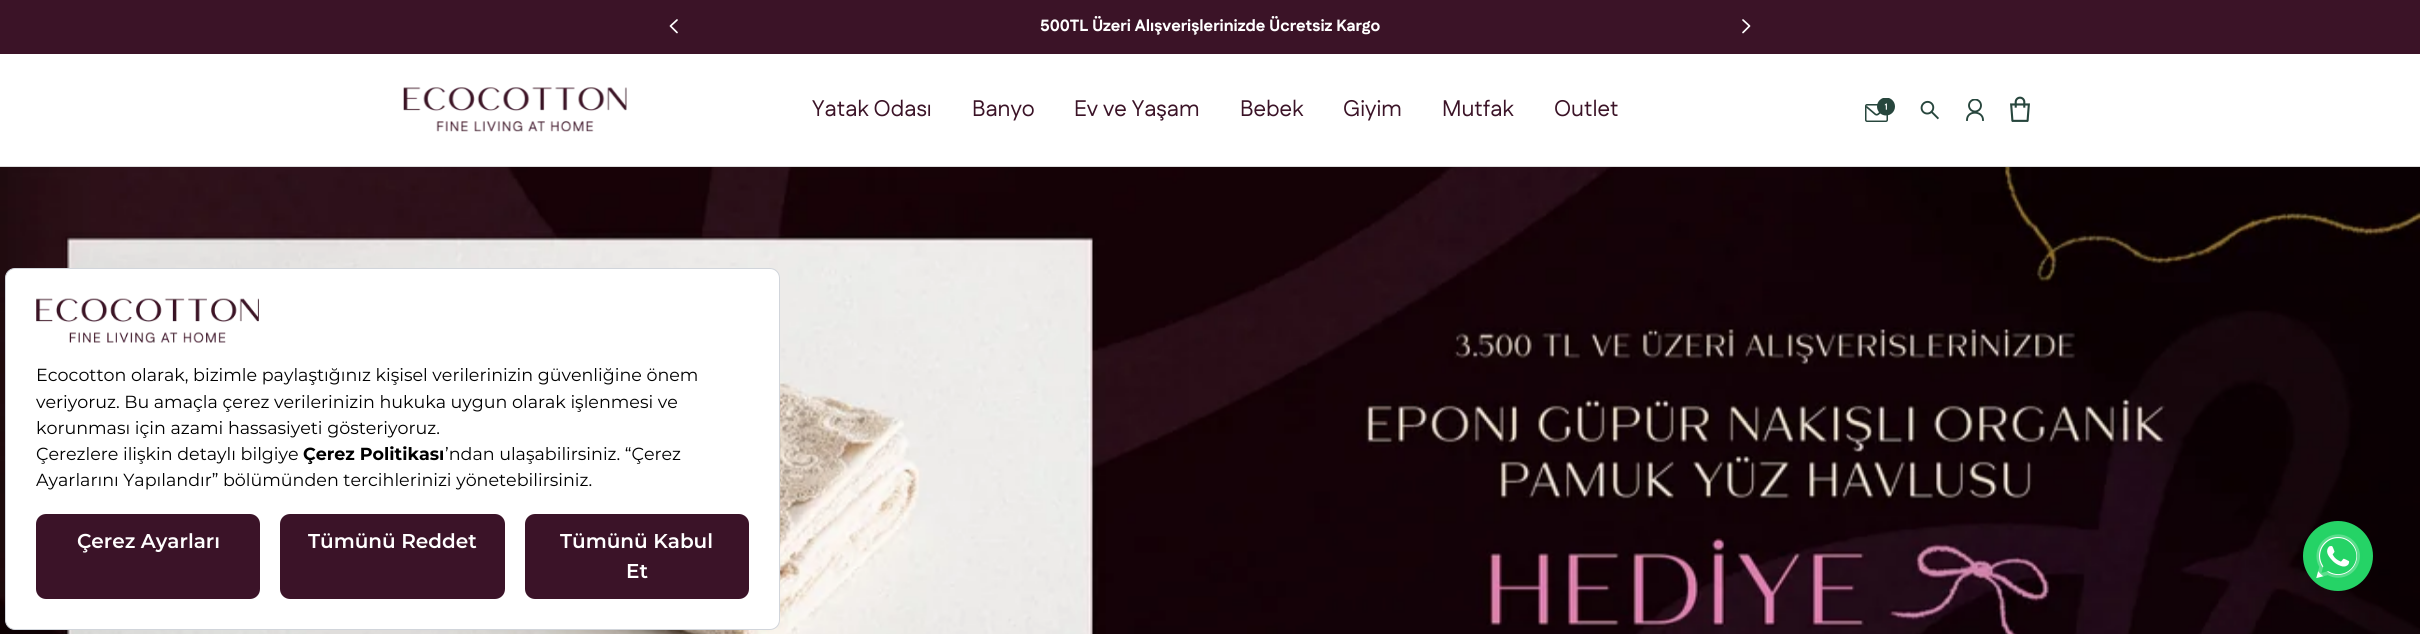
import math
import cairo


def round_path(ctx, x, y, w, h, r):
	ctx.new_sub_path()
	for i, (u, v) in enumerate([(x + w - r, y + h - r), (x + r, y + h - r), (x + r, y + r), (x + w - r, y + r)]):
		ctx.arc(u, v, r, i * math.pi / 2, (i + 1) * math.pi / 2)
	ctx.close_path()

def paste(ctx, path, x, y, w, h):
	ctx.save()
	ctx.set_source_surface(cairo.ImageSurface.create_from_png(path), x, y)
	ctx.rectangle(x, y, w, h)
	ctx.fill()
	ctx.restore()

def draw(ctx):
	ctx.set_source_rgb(1, 1, 1)
	ctx.paint()
	ctx.set_source_rgb(0.867, 0.867, 0.867)
	ctx.rectangle(0, 166, 2420, 1)
	ctx.fill()
	ctx.set_source_rgb(0.231, 0.078, 0.153)
	ctx.rectangle(0, 0, 2420, 54)
	ctx.fill()
	ctx.new_path()
	ctx.move_to(677, 32.5)
	ctx.line_to(670.5, 26)
	ctx.line_to(677, 20)
	ctx.set_source_rgb(1, 1, 1)
	ctx.set_line_width(1.7)
	ctx.set_line_cap(cairo.LINE_CAP_ROUND)
	ctx.set_line_join(cairo.LINE_JOIN_ROUND)
	ctx.stroke()
	ctx.select_font_face('Fustat ExtraBold')
	ctx.set_font_size(16.25)
	ctx.move_to(1040, 31)
	ctx.show_text('500TL Üzeri Alışverişlerinizde Ücretsiz Kargo')
	ctx.new_path()
	ctx.move_to(1743, 20)
	ctx.line_to(1749.5, 26)
	ctx.line_to(1743, 32.5)
	ctx.stroke()
	paste(ctx, 'media/1.png', 403, 87, 224, 45)
	ctx.select_font_face('Fustat')
	ctx.set_font_size(22.5)
	ctx.set_source_rgb(0.231, 0.078, 0.153)
	for x, y, s in [
		(812, 116, 'Yatak Odası'),
		(972, 116, 'Banyo'),
		(1074, 116, 'Ev ve Yaşam'),
		(1240, 116, 'Bebek'),
		(1343, 116, 'Giyim'),
		(1442, 116, 'Mutfak'),
		(1554, 116, 'Outlet'),
	]:
		ctx.move_to(x, y)
		ctx.show_text(s)
	paste(ctx, 'media/2.png', 1865, 98, 30, 24)
	paste(ctx, 'media/3.png', 1920, 100, 19, 20)
	ctx.save()
	ctx.rectangle(1965, 99, 20, 22)
	ctx.clip()
	ctx.arc(1975, 105.5, 6, 0, 2 * math.pi)
	ctx.set_source_rgb(0.153, 0.275, 0.239)
	ctx.set_line_width(1.9)
	ctx.set_line_cap(cairo.LINE_CAP_BUTT)
	ctx.set_line_join(cairo.LINE_JOIN_MITER)
	ctx.stroke()
	ctx.restore()
	ctx.new_path()
	ctx.move_to(1983, 120)
	ctx.curve_to(1983, 110.5, 1967, 110, 1967, 120)
	ctx.set_source_rgb(0.153, 0.275, 0.239)
	ctx.set_line_width(1.9)
	ctx.set_line_cap(cairo.LINE_CAP_SQUARE)
	ctx.set_line_join(cairo.LINE_JOIN_MITER)
	ctx.stroke()
	paste(ctx, 'media/4.png', 2010, 96, 20, 26)
	paste(ctx, 'media/5.png', 0, 167, 2420, 467)
	ctx.set_source_rgb(1, 1, 1)
	round_path(ctx, 5.5, 268.5, 774, 361, 9.5)
	ctx.fill_preserve()
	ctx.set_source_rgb(0.82, 0.835, 0.859)
	ctx.set_line_width(1)
	ctx.set_line_cap(cairo.LINE_CAP_BUTT)
	ctx.stroke()
	paste(ctx, 'media/6.png', 36, 298, 223, 45)
	ctx.select_font_face('Montserrat')
	ctx.set_font_size(17.5)
	ctx.set_source_rgb(0, 0, 0)
	for x, y, s in [
		(36, 381, 'Ecocotton olarak, bizimle paylaştığınız kişisel verilerinizin güvenliğine önem'),
		(36, 408, 'veriyoruz. Bu amaçla çerez verilerinizin hukuka uygun olarak işlenmesi ve'),
		(36, 434, 'korunması için azami hassasiyeti gösteriyoruz.'),
		(36, 460, 'Çerezlere ilişkin detaylı bilgiye'),
	]:
		ctx.move_to(x, y)
		ctx.show_text(s)
	ctx.select_font_face('Montserrat', cairo.FONT_SLANT_NORMAL, cairo.FONT_WEIGHT_BOLD)
	ctx.move_to(303, 460)
	ctx.show_text('Çerez Politikası')
	ctx.select_font_face('Montserrat')
	ctx.move_to(445, 460)
	ctx.show_text('’ndan ulaşabilirsiniz. “Çerez')
	ctx.move_to(36, 486)
	ctx.show_text('Ayarlarını Yapılandır” bölümünden tercihlerinizi yönetebilirsiniz.')
	ctx.set_source_rgb(0.231, 0.078, 0.157)
	round_path(ctx, 36, 514, 224, 85, 10)
	ctx.fill()
	ctx.select_font_face('Montserrat SemiBold')
	ctx.set_font_size(20)
	ctx.set_source_rgb(1, 1, 1)
	ctx.move_to(77, 548)
	ctx.show_text('Çerez Ayarları')
	ctx.set_source_rgb(0.231, 0.078, 0.157)
	round_path(ctx, 280, 514, 225, 85, 10)
	ctx.fill()
	ctx.set_source_rgb(1, 1, 1)
	ctx.move_to(308, 548)
	ctx.show_text('Tümünü Reddet')
	ctx.set_source_rgb(0.231, 0.078, 0.157)
	round_path(ctx, 525, 514, 224, 85, 10)
	ctx.fill()
	ctx.set_source_rgb(1, 1, 1)
	ctx.move_to(560, 548)
	ctx.show_text('Tümünü Kabul')
	ctx.move_to(626, 578)
	ctx.show_text('Et')
	ctx.set_source_rgb(0.145, 0.827, 0.4)
	ctx.new_path()
	ctx.arc(2338, 556, 35, 0, 2 * math.pi)
	ctx.fill()
	paste(ctx, 'media/7.png', 2316, 534, 44, 45)
	ctx.arc(2338, 556, 22, 0, 2 * math.pi)
	ctx.set_source_rgba(0.145, 0.827, 0.4, 0.75)
	ctx.set_line_width(6)
	ctx.stroke()


surface = cairo.ImageSurface(cairo.FORMAT_RGB24, 2420, 634)
ctx = cairo.Context(surface)
options = cairo.FontOptions()
options.set_hint_metrics(cairo.HINT_METRICS_OFF)
options.set_hint_style(cairo.HINT_STYLE_NONE)
ctx.set_font_options(options)
ctx.set_miter_limit(4)
draw(ctx)
surface.write_to_png('image.png')
